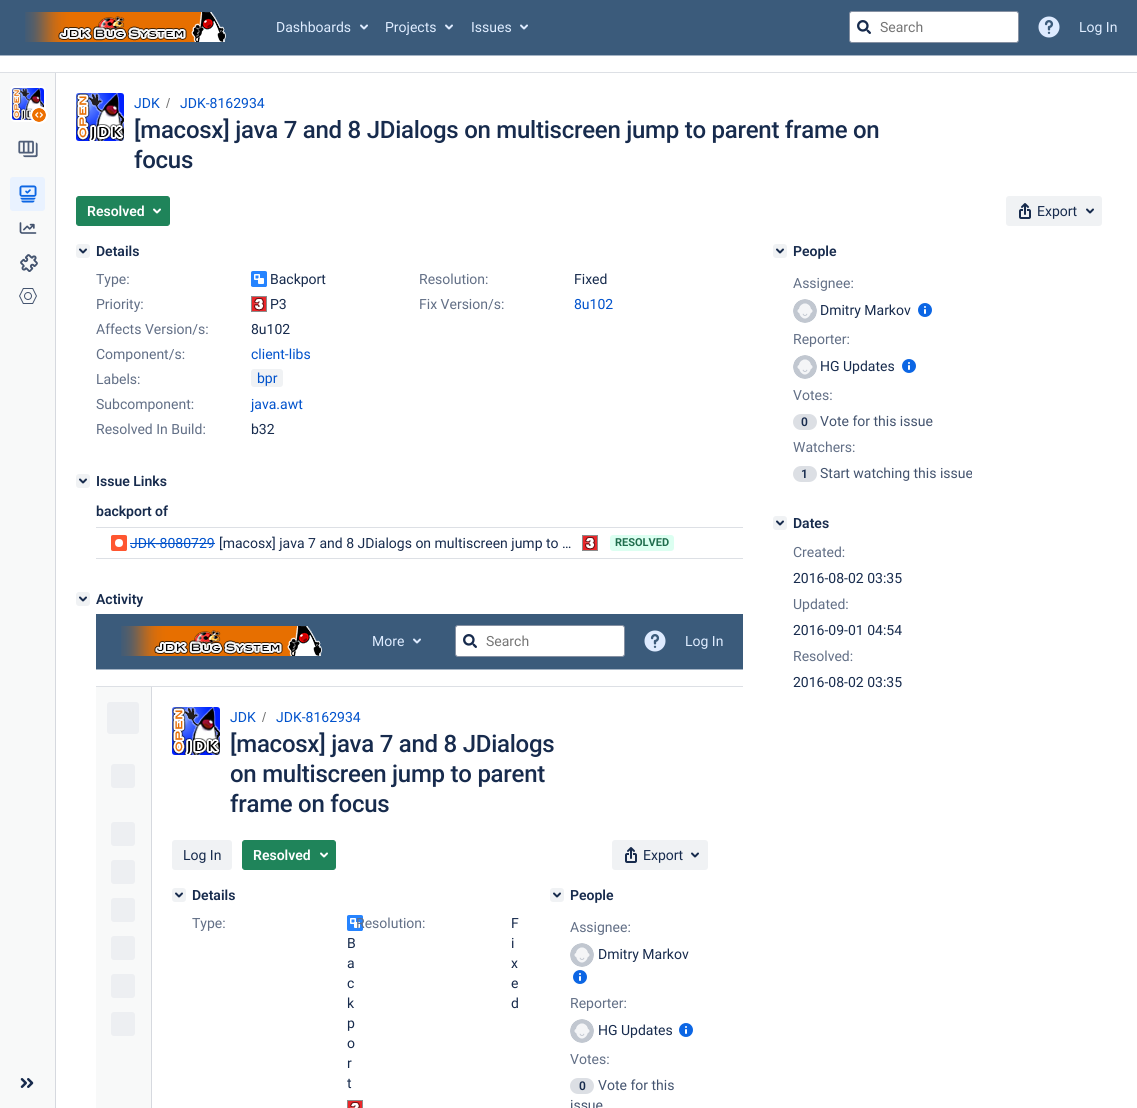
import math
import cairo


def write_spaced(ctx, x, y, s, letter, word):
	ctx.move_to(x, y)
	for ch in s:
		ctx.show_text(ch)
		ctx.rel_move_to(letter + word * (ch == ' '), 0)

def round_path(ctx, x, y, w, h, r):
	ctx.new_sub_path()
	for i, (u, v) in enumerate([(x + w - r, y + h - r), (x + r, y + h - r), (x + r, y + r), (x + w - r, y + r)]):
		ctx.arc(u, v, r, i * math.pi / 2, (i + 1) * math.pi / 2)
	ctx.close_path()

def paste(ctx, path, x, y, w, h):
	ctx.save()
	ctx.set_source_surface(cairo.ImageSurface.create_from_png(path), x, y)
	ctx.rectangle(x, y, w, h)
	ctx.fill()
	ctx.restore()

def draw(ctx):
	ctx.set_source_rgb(1, 1, 1)
	ctx.paint()
	ctx.set_source_rgb(0.231, 0.357, 0.482)
	ctx.rectangle(0, 0, 1137, 55)
	ctx.fill()
	ctx.set_source_rgb(0.643, 0.702, 0.769)
	ctx.rectangle(0, 55, 1137, 1)
	ctx.fill()
	paste(ctx, 'media/1.png', 25, 12, 201, 30)
	ctx.select_font_face('Roboto')
	ctx.set_font_size(14)
	ctx.set_source_rgb(0.871, 0.922, 1)
	ctx.move_to(276, 32)
	ctx.show_text('Dashboards')
	paste(ctx, 'media/2.png', 360, 24, 8, 6)
	ctx.move_to(385, 32)
	ctx.show_text('Projects')
	paste(ctx, 'media/2.png', 445, 24, 8, 6)
	ctx.move_to(471, 32)
	ctx.show_text('Issues')
	paste(ctx, 'media/2.png', 520, 24, 8, 6)
	ctx.set_source_rgb(1, 1, 1)
	round_path(ctx, 849.5, 11.5, 169, 31, 2.5)
	ctx.fill_preserve()
	ctx.set_source_rgb(0.522, 0.565, 0.635)
	ctx.set_line_width(1)
	ctx.stroke()
	paste(ctx, 'media/3.png', 857, 20, 14, 14)
	ctx.set_source_rgb(0.459, 0.459, 0.459)
	ctx.move_to(880, 32)
	ctx.show_text('Search')
	paste(ctx, 'media/4.png', 1038, 16, 22, 22)
	ctx.set_source_rgb(0.871, 0.922, 1)
	ctx.move_to(1079, 32)
	ctx.show_text('Log In')
	ctx.set_source_rgb(0.867, 0.878, 0.898)
	ctx.rectangle(0, 72, 1137, 1)
	ctx.fill()
	ctx.set_source_rgb(0.969, 0.973, 0.976)
	ctx.rectangle(0, 73, 55, 1035)
	ctx.fill()
	ctx.set_source_rgb(0.839, 0.851, 0.875)
	ctx.rectangle(55, 73, 1, 1035)
	ctx.fill()
	round_path(ctx, 11, 87, 34, 34, 4)
	ctx.set_source_rgb(1, 1, 1)
	ctx.set_line_width(2)
	ctx.stroke()
	paste(ctx, 'media/5.png', 12, 88, 32, 32)
	ctx.arc(39, 115, 9, 0, 2 * math.pi)
	ctx.fill()
	paste(ctx, 'media/6.png', 32, 108, 14, 14)
	paste(ctx, 'media/7.png', 18, 140, 20, 18)
	ctx.set_source_rgb(0.914, 0.949, 1)
	round_path(ctx, 10, 177, 35, 34, 3)
	ctx.fill()
	paste(ctx, 'media/8.png', 19, 185, 18, 18)
	paste(ctx, 'media/9.png', 19, 222, 18, 12)
	paste(ctx, 'media/10.png', 20, 254, 18, 18)
	paste(ctx, 'media/11.png', 19, 288, 18, 16)
	paste(ctx, 'media/12.png', 20, 1078, 14, 10)
	paste(ctx, 'media/13.png', 76, 93, 48, 48)
	ctx.set_source_rgb(0, 0.322, 0.8)
	ctx.move_to(134, 108)
	ctx.show_text('JDK')
	ctx.set_source_rgb(0.439, 0.439, 0.439)
	ctx.new_path()
	ctx.move_to(167, 108)
	ctx.line_to(170, 98)
	ctx.line_to(169, 98)
	ctx.line_to(166, 108)
	ctx.close_path()
	ctx.fill()
	ctx.set_source_rgb(0, 0.322, 0.8)
	ctx.move_to(180, 108)
	ctx.show_text('JDK-8162934')
	ctx.select_font_face('Roboto Medium')
	ctx.set_font_size(24)
	ctx.set_source_rgb(0.09, 0.169, 0.302)
	write_spaced(ctx, 134, 138, '[macosx] java 7 and 8 JDialogs on multiscreen jump to parent frame on', -0.25, 0)
	write_spaced(ctx, 134, 168, 'focus', -0.25, 0)
	ctx.set_source_rgb(0.122, 0.518, 0.353)
	round_path(ctx, 76.5, 196.5, 93, 29, 2.5)
	ctx.fill_preserve()
	ctx.set_line_width(1)
	ctx.stroke()
	ctx.select_font_face('Roboto SemiBold')
	ctx.set_font_size(14)
	ctx.set_source_rgb(1, 1, 1)
	ctx.move_to(87, 216)
	ctx.show_text('Resolved')
	paste(ctx, 'media/14.png', 153, 208, 8, 6)
	ctx.set_source_rgb(0.941, 0.949, 0.957)
	round_path(ctx, 1006, 196, 96, 30, 3)
	ctx.fill()
	paste(ctx, 'media/15.png', 1019, 203, 12, 16)
	ctx.select_font_face('Roboto')
	ctx.set_source_rgb(0.09, 0.169, 0.302)
	ctx.move_to(1037, 216)
	ctx.show_text('Export')
	paste(ctx, 'media/16.png', 1086, 208, 8, 6)
	ctx.set_source_rgb(0.941, 0.949, 0.957)
	round_path(ctx, 76, 244, 14, 14, 3)
	ctx.fill()
	paste(ctx, 'media/17.png', 79, 248, 8, 6)
	ctx.select_font_face('Roboto SemiBold')
	ctx.set_source_rgb(0.09, 0.169, 0.302)
	ctx.move_to(96, 256)
	ctx.show_text('Details')
	ctx.select_font_face('Roboto')
	ctx.set_source_rgb(0.384, 0.435, 0.525)
	ctx.move_to(96, 284)
	ctx.show_text('Type:')
	paste(ctx, 'media/18.png', 251, 271, 16, 16)
	ctx.set_source_rgb(0.09, 0.169, 0.302)
	ctx.move_to(270, 284)
	ctx.show_text('Backport')
	ctx.set_source_rgb(0.384, 0.435, 0.525)
	ctx.move_to(419, 284)
	ctx.show_text('Resolution:')
	ctx.set_source_rgb(0.09, 0.169, 0.302)
	ctx.move_to(574, 284)
	ctx.show_text('Fixed')
	ctx.set_source_rgb(0.384, 0.435, 0.525)
	ctx.move_to(96, 309)
	ctx.show_text('Priority:')
	paste(ctx, 'media/19.png', 251, 296, 16, 16)
	ctx.set_source_rgb(0.09, 0.169, 0.302)
	ctx.move_to(270, 309)
	ctx.show_text('P3')
	ctx.set_source_rgb(0.384, 0.435, 0.525)
	ctx.move_to(419, 309)
	ctx.show_text('Fix Version/s:')
	ctx.set_source_rgb(0, 0.322, 0.8)
	ctx.move_to(574, 309)
	ctx.show_text('8u102')
	ctx.set_source_rgb(0.384, 0.435, 0.525)
	ctx.move_to(96, 334)
	ctx.show_text('Affects Version/s:')
	ctx.set_source_rgb(0.09, 0.169, 0.302)
	ctx.move_to(251, 334)
	ctx.show_text('8u102')
	ctx.set_source_rgb(0.384, 0.435, 0.525)
	ctx.move_to(96, 359)
	ctx.show_text('Component/s:')
	ctx.set_source_rgb(0, 0.322, 0.8)
	ctx.move_to(251, 359)
	ctx.show_text('client-libs')
	ctx.set_source_rgb(0.384, 0.435, 0.525)
	ctx.move_to(96, 384)
	ctx.show_text('Labels:')
	ctx.set_source_rgb(0.941, 0.949, 0.957)
	round_path(ctx, 251, 369, 32, 18, 3)
	ctx.fill()
	ctx.set_source_rgb(0, 0.322, 0.8)
	ctx.move_to(257, 383)
	ctx.show_text('bpr')
	ctx.set_source_rgb(0.384, 0.435, 0.525)
	ctx.move_to(96, 409)
	ctx.show_text('Subcomponent:')
	ctx.set_source_rgb(0, 0.322, 0.8)
	ctx.move_to(251, 409)
	ctx.show_text('java.awt')
	ctx.set_source_rgb(0.384, 0.435, 0.525)
	ctx.move_to(96, 434)
	ctx.show_text('Resolved In Build:')
	ctx.set_source_rgb(0.09, 0.169, 0.302)
	ctx.move_to(251, 434)
	ctx.show_text('b32')
	ctx.set_source_rgb(0.941, 0.949, 0.957)
	round_path(ctx, 76, 474, 14, 14, 3)
	ctx.fill()
	paste(ctx, 'media/17.png', 79, 478, 8, 6)
	ctx.select_font_face('Roboto SemiBold')
	ctx.set_source_rgb(0.09, 0.169, 0.302)
	ctx.move_to(96, 486)
	ctx.show_text('Issue Links')
	ctx.move_to(96, 516)
	ctx.show_text('backport of')
	ctx.set_source_rgb(0.867, 0.878, 0.898)
	ctx.rectangle(96, 527, 647, 1)
	ctx.fill()
	ctx.rectangle(96, 558, 647, 1)
	ctx.fill()
	paste(ctx, 'media/20.png', 111, 535, 16, 16)
	ctx.select_font_face('Roboto')
	ctx.set_source_rgb(0, 0.322, 0.8)
	ctx.move_to(130, 548)
	ctx.show_text('JDK-8080729')
	ctx.rectangle(130, 543, 85, 1)
	ctx.fill()
	ctx.set_source_rgb(0.09, 0.169, 0.302)
	ctx.move_to(219, 548)
	ctx.show_text('[macosx] java 7 and 8 JDialogs on multiscreen jump to …')
	paste(ctx, 'media/19.png', 582, 535, 16, 16)
	ctx.set_source_rgb(0.863, 1, 0.945)
	round_path(ctx, 610, 535, 64, 16, 3)
	ctx.fill()
	ctx.select_font_face('Roboto', cairo.FONT_SLANT_NORMAL, cairo.FONT_WEIGHT_BOLD)
	ctx.set_font_size(11)
	ctx.set_source_rgb(0.129, 0.431, 0.306)
	ctx.move_to(615, 546)
	ctx.show_text('RESOLVED')
	ctx.set_source_rgb(0.941, 0.949, 0.957)
	round_path(ctx, 76, 592, 14, 14, 3)
	ctx.fill()
	paste(ctx, 'media/17.png', 79, 596, 8, 6)
	ctx.select_font_face('Roboto SemiBold')
	ctx.set_font_size(14)
	ctx.set_source_rgb(0.09, 0.169, 0.302)
	ctx.move_to(96, 604)
	ctx.show_text('Activity')
	ctx.set_source_rgb(0.231, 0.357, 0.482)
	ctx.rectangle(96, 614, 647, 55)
	ctx.fill()
	ctx.set_source_rgb(0.643, 0.702, 0.769)
	ctx.rectangle(96, 669, 647, 1)
	ctx.fill()
	paste(ctx, 'media/1.png', 121, 626, 201, 30)
	ctx.select_font_face('Roboto')
	ctx.set_source_rgb(0.871, 0.922, 1)
	ctx.move_to(372, 646)
	ctx.show_text('More')
	paste(ctx, 'media/2.png', 413, 638, 8, 6)
	ctx.set_source_rgb(1, 1, 1)
	round_path(ctx, 455.5, 625.5, 169, 31, 2.5)
	ctx.fill_preserve()
	ctx.set_source_rgb(0.522, 0.565, 0.635)
	ctx.stroke()
	paste(ctx, 'media/3.png', 463, 634, 14, 14)
	ctx.set_source_rgb(0.459, 0.459, 0.459)
	ctx.move_to(486, 646)
	ctx.show_text('Search')
	paste(ctx, 'media/4.png', 644, 630, 22, 22)
	ctx.set_source_rgb(0.871, 0.922, 1)
	ctx.move_to(685, 646)
	ctx.show_text('Log In')
	ctx.set_source_rgb(0.867, 0.878, 0.898)
	ctx.rectangle(96, 686, 647, 1)
	ctx.fill()
	ctx.set_source_rgb(0.969, 0.973, 0.976)
	ctx.rectangle(96, 687, 55, 421)
	ctx.fill()
	ctx.set_source_rgb(0.839, 0.851, 0.875)
	ctx.rectangle(151, 687, 1, 421)
	ctx.fill()
	ctx.set_source_rgb(0.929, 0.937, 0.949)
	round_path(ctx, 107, 702, 32, 32, 3)
	ctx.fill()
	round_path(ctx, 111, 764, 24, 24, 3)
	ctx.fill()
	round_path(ctx, 111, 822, 24, 24, 3)
	ctx.fill()
	round_path(ctx, 111, 860, 24, 24, 3)
	ctx.fill()
	round_path(ctx, 111, 898, 24, 24, 3)
	ctx.fill()
	round_path(ctx, 111, 936, 24, 24, 3)
	ctx.fill()
	round_path(ctx, 111, 974, 24, 24, 3)
	ctx.fill()
	round_path(ctx, 111, 1012, 24, 24, 3)
	ctx.fill()
	paste(ctx, 'media/13.png', 172, 707, 48, 48)
	ctx.set_source_rgb(0, 0.322, 0.8)
	ctx.move_to(230, 722)
	ctx.show_text('JDK')
	ctx.set_source_rgb(0.439, 0.439, 0.439)
	ctx.new_path()
	ctx.move_to(263, 722)
	ctx.line_to(266, 712)
	ctx.line_to(265, 712)
	ctx.line_to(262, 722)
	ctx.close_path()
	ctx.fill()
	ctx.set_source_rgb(0, 0.322, 0.8)
	ctx.move_to(276, 722)
	ctx.show_text('JDK-8162934')
	ctx.select_font_face('Roboto Medium')
	ctx.set_font_size(24)
	ctx.set_source_rgb(0.09, 0.169, 0.302)
	for x, y, s in [
		(230, 752, '[macosx] java 7 and 8 JDialogs'),
		(230, 782, 'on multiscreen jump to parent'),
		(230, 812, 'frame on focus'),
	]:
		write_spaced(ctx, x, y, s, -0.25, 0)
	ctx.set_source_rgb(0.941, 0.949, 0.957)
	round_path(ctx, 172, 840, 60, 30, 3)
	ctx.fill()
	ctx.select_font_face('Roboto')
	ctx.set_font_size(14)
	ctx.set_source_rgb(0.09, 0.169, 0.302)
	ctx.move_to(183, 860)
	ctx.show_text('Log In')
	ctx.set_source_rgb(0.122, 0.518, 0.353)
	round_path(ctx, 242.5, 840.5, 93, 29, 2.5)
	ctx.fill_preserve()
	ctx.stroke()
	ctx.select_font_face('Roboto SemiBold')
	ctx.set_source_rgb(1, 1, 1)
	ctx.move_to(253, 860)
	ctx.show_text('Resolved')
	paste(ctx, 'media/14.png', 320, 852, 8, 6)
	ctx.set_source_rgb(0.941, 0.949, 0.957)
	round_path(ctx, 612, 840, 96, 30, 3)
	ctx.fill()
	paste(ctx, 'media/15.png', 625, 847, 12, 16)
	ctx.select_font_face('Roboto')
	ctx.set_source_rgb(0.09, 0.169, 0.302)
	ctx.move_to(643, 860)
	ctx.show_text('Export')
	paste(ctx, 'media/16.png', 691, 852, 8, 6)
	ctx.set_source_rgb(0.941, 0.949, 0.957)
	round_path(ctx, 172, 888, 14, 14, 3)
	ctx.fill()
	paste(ctx, 'media/17.png', 175, 892, 8, 6)
	ctx.select_font_face('Roboto SemiBold')
	ctx.set_source_rgb(0.09, 0.169, 0.302)
	ctx.move_to(192, 900)
	ctx.show_text('Details')
	ctx.select_font_face('Roboto')
	ctx.set_source_rgb(0.384, 0.435, 0.525)
	ctx.move_to(192, 928)
	ctx.show_text('Type:')
	paste(ctx, 'media/21.png', 347, 915, 16, 16)
	ctx.set_source_rgb(0.09, 0.169, 0.302)
	for x, y, s in [
		(347, 948, 'B'),
		(347, 968, 'a'),
		(347, 988, 'c'),
		(347, 1008, 'k'),
		(347, 1028, 'p'),
		(347, 1048, 'o'),
		(347, 1068, 'r'),
		(347, 1088, 't'),
	]:
		ctx.move_to(x, y)
		ctx.show_text(s)
	ctx.set_source_rgb(0.384, 0.435, 0.525)
	ctx.move_to(356, 928)
	ctx.show_text('Resolution:')
	ctx.set_source_rgb(0.09, 0.169, 0.302)
	for x, y, s in [
		(511, 928, 'F'),
		(511, 948, 'i'),
		(511, 968, 'x'),
		(511, 988, 'e'),
		(511, 1008, 'd'),
	]:
		ctx.move_to(x, y)
		ctx.show_text(s)
	paste(ctx, 'media/22.png', 347, 1100, 16, 8)
	ctx.set_source_rgb(0.941, 0.949, 0.957)
	round_path(ctx, 550, 888, 14, 14, 3)
	ctx.fill()
	paste(ctx, 'media/17.png', 553, 892, 8, 6)
	ctx.select_font_face('Roboto SemiBold')
	ctx.set_source_rgb(0.09, 0.169, 0.302)
	ctx.move_to(570, 900)
	ctx.show_text('People')
	ctx.select_font_face('Roboto')
	ctx.set_source_rgb(0.384, 0.435, 0.525)
	ctx.move_to(570, 932)
	ctx.show_text('Assignee:')
	paste(ctx, 'media/23.png', 570, 943, 24, 24)
	ctx.set_source_rgb(0.09, 0.169, 0.302)
	ctx.move_to(598, 959)
	ctx.show_text('Dmitry Markov')
	paste(ctx, 'media/24.png', 573, 970, 14, 14)
	ctx.set_source_rgb(0.384, 0.435, 0.525)
	ctx.move_to(570, 1008)
	ctx.show_text('Reporter:')
	paste(ctx, 'media/23.png', 570, 1019, 24, 24)
	ctx.set_source_rgb(0.09, 0.169, 0.302)
	ctx.move_to(598, 1035)
	ctx.show_text('HG Updates')
	paste(ctx, 'media/24.png', 679, 1023, 14, 14)
	ctx.set_source_rgb(0.384, 0.435, 0.525)
	ctx.move_to(570, 1064)
	ctx.show_text('Votes:')
	ctx.set_source_rgb(0.863, 0.875, 0.894)
	round_path(ctx, 570, 1078, 24, 16, 8)
	ctx.fill()
	ctx.select_font_face('Roboto SemiBold')
	ctx.set_font_size(12)
	ctx.set_source_rgb(0.09, 0.169, 0.302)
	ctx.move_to(579, 1090)
	ctx.show_text('0')
	ctx.select_font_face('Roboto')
	ctx.set_font_size(14)
	ctx.set_source_rgb(0.267, 0.329, 0.435)
	ctx.move_to(598, 1090)
	ctx.show_text('Vote for this')
	ctx.move_to(570, 1110)
	ctx.show_text('issue')
	ctx.set_source_rgb(0.941, 0.949, 0.957)
	round_path(ctx, 773, 244, 14, 14, 3)
	ctx.fill()
	paste(ctx, 'media/17.png', 776, 248, 8, 6)
	ctx.select_font_face('Roboto SemiBold')
	ctx.set_source_rgb(0.09, 0.169, 0.302)
	ctx.move_to(793, 256)
	ctx.show_text('People')
	ctx.select_font_face('Roboto')
	ctx.set_source_rgb(0.384, 0.435, 0.525)
	ctx.move_to(793, 288)
	ctx.show_text('Assignee:')
	paste(ctx, 'media/25.png', 793, 299, 24, 24)
	ctx.set_source_rgb(0.09, 0.169, 0.302)
	ctx.move_to(820, 315)
	ctx.show_text('Dmitry Markov')
	paste(ctx, 'media/24.png', 918, 303, 14, 14)
	ctx.set_source_rgb(0.384, 0.435, 0.525)
	ctx.move_to(793, 344)
	ctx.show_text('Reporter:')
	paste(ctx, 'media/25.png', 793, 355, 24, 24)
	ctx.set_source_rgb(0.09, 0.169, 0.302)
	ctx.move_to(820, 371)
	ctx.show_text('HG Updates')
	paste(ctx, 'media/24.png', 902, 359, 14, 14)
	ctx.set_source_rgb(0.384, 0.435, 0.525)
	ctx.move_to(793, 400)
	ctx.show_text('Votes:')
	ctx.set_source_rgb(0.863, 0.875, 0.894)
	round_path(ctx, 793, 414, 24, 16, 8)
	ctx.fill()
	ctx.select_font_face('Roboto SemiBold')
	ctx.set_font_size(12)
	ctx.set_source_rgb(0.09, 0.169, 0.302)
	ctx.move_to(801, 426)
	ctx.show_text('0')
	ctx.select_font_face('Roboto')
	ctx.set_font_size(14)
	ctx.set_source_rgb(0.267, 0.329, 0.435)
	ctx.move_to(820, 426)
	ctx.show_text('Vote for this issue')
	ctx.set_source_rgb(0.384, 0.435, 0.525)
	ctx.move_to(793, 452)
	ctx.show_text('Watchers:')
	ctx.set_source_rgb(0.863, 0.875, 0.894)
	round_path(ctx, 793, 466, 24, 16, 8)
	ctx.fill()
	ctx.select_font_face('Roboto SemiBold')
	ctx.set_font_size(12)
	ctx.set_source_rgb(0.09, 0.169, 0.302)
	ctx.move_to(801, 478)
	ctx.show_text('1')
	ctx.select_font_face('Roboto')
	ctx.set_font_size(14)
	ctx.set_source_rgb(0.267, 0.329, 0.435)
	ctx.move_to(820, 478)
	ctx.show_text('Start watching this issue')
	ctx.set_source_rgb(0.941, 0.949, 0.957)
	round_path(ctx, 773, 516, 14, 14, 3)
	ctx.fill()
	paste(ctx, 'media/17.png', 776, 520, 8, 6)
	ctx.select_font_face('Roboto SemiBold')
	ctx.set_source_rgb(0.09, 0.169, 0.302)
	ctx.move_to(793, 528)
	ctx.show_text('Dates')
	ctx.select_font_face('Roboto')
	ctx.set_source_rgb(0.384, 0.435, 0.525)
	ctx.move_to(793, 557)
	ctx.show_text('Created:')
	ctx.set_source_rgb(0.09, 0.169, 0.302)
	ctx.move_to(793, 583)
	ctx.show_text('2016-08-02 03:35')
	ctx.set_source_rgb(0.384, 0.435, 0.525)
	ctx.move_to(793, 609)
	ctx.show_text('Updated:')
	ctx.set_source_rgb(0.09, 0.169, 0.302)
	ctx.move_to(793, 635)
	ctx.show_text('2016-09-01 04:54')
	ctx.set_source_rgb(0.384, 0.435, 0.525)
	ctx.move_to(793, 661)
	ctx.show_text('Resolved:')
	ctx.set_source_rgb(0.09, 0.169, 0.302)
	ctx.move_to(793, 687)
	ctx.show_text('2016-08-02 03:35')


surface = cairo.ImageSurface(cairo.FORMAT_RGB24, 1137, 1108)
ctx = cairo.Context(surface)
options = cairo.FontOptions()
options.set_hint_metrics(cairo.HINT_METRICS_OFF)
options.set_hint_style(cairo.HINT_STYLE_NONE)
ctx.set_font_options(options)
ctx.set_miter_limit(4)
draw(ctx)
surface.write_to_png('image.png')
